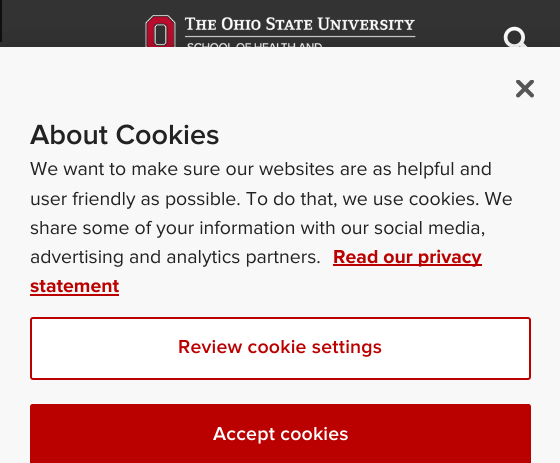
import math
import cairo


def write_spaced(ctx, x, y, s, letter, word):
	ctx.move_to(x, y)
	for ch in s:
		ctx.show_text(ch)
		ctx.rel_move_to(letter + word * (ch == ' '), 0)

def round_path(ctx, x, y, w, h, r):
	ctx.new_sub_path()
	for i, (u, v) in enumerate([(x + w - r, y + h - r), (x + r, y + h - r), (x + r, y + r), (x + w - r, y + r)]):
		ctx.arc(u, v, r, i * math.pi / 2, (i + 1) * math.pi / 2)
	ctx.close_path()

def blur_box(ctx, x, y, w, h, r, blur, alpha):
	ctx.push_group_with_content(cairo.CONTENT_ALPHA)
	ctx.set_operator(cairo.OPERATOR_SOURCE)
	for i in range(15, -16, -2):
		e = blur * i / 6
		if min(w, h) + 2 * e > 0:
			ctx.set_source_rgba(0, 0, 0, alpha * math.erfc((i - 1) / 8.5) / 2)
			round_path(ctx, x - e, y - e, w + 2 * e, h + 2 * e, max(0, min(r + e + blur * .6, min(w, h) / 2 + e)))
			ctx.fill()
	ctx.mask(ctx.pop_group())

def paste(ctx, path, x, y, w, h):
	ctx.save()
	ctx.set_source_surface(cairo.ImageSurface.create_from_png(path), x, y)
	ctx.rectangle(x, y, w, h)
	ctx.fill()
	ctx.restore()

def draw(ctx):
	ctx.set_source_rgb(0.2, 0.2, 0.2)
	ctx.paint()
	ctx.set_source_rgb(0.059, 0.059, 0.059)
	ctx.rectangle(0, 0, 2, 42)
	ctx.fill()
	paste(ctx, 'media/1.png', 145, 15, 271, 32)
	paste(ctx, 'media/2.png', 503, 26, 25, 21)
	ctx.set_source_rgb(0, 0, 0)
	blur_box(ctx, 0, 47, 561, 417, 0, 13.5, 0.2)
	ctx.set_source_rgb(0.969, 0.969, 0.969)
	ctx.rectangle(0, 47, 560, 416)
	ctx.fill()
	paste(ctx, 'media/3.png', 516, 80, 18, 18)
	ctx.select_font_face('Proxima Nova SemiBold')
	ctx.set_font_size(28.75)
	ctx.set_source_rgb(0.133, 0.133, 0.133)
	ctx.move_to(30, 144)
	ctx.show_text('About Cookies')
	ctx.select_font_face('Proxima Nova')
	ctx.set_font_size(19.5)
	for x, y, s in [
		(30, 175, 'We want to make sure our websites are as helpful and'),
		(30, 205, 'user friendly as possible. To do that, we use cookies. We'),
		(30, 234, 'share some of your information with our social media,'),
		(30, 263, 'advertising and analytics partners.'),
	]:
		ctx.move_to(x, y)
		ctx.show_text(s)
	ctx.set_source_rgb(0.733, 0, 0)
	ctx.rectangle(333, 264, 149, 2)
	ctx.fill()
	ctx.select_font_face('Proxima Nova', cairo.FONT_SLANT_NORMAL, cairo.FONT_WEIGHT_BOLD)
	ctx.move_to(333, 263)
	ctx.show_text('Read our privacy')
	ctx.move_to(30, 292)
	ctx.show_text('statement')
	ctx.rectangle(30, 294, 89, 2)
	ctx.fill()
	ctx.set_source_rgb(1, 1, 1)
	round_path(ctx, 31, 318, 499, 61, 2)
	ctx.fill_preserve()
	ctx.set_source_rgb(0.733, 0, 0)
	ctx.stroke()
	ctx.select_font_face('Proxima Nova SemiBold')
	write_spaced(ctx, 178, 353, 'Review cookie settings', 0.2, 0)
	ctx.new_path()
	ctx.move_to(33, 404)
	ctx.line_to(528, 404)
	ctx.curve_to(529.5, 404, 531, 405.5, 531, 407)
	ctx.line_to(531, 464)
	ctx.line_to(30, 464)
	ctx.line_to(30, 407)
	ctx.curve_to(30, 405.5, 31.5, 404, 33, 404)
	ctx.close_path()
	ctx.fill()
	round_path(ctx, 31, 405, 499, 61, 2)
	ctx.stroke()
	ctx.set_source_rgb(1, 1, 1)
	write_spaced(ctx, 213, 440, 'Accept cookies', 0.2, 0)


surface = cairo.ImageSurface(cairo.FORMAT_RGB24, 560, 463)
ctx = cairo.Context(surface)
options = cairo.FontOptions()
options.set_hint_metrics(cairo.HINT_METRICS_OFF)
options.set_hint_style(cairo.HINT_STYLE_NONE)
ctx.set_font_options(options)
ctx.set_miter_limit(4)
draw(ctx)
surface.write_to_png('image.png')
